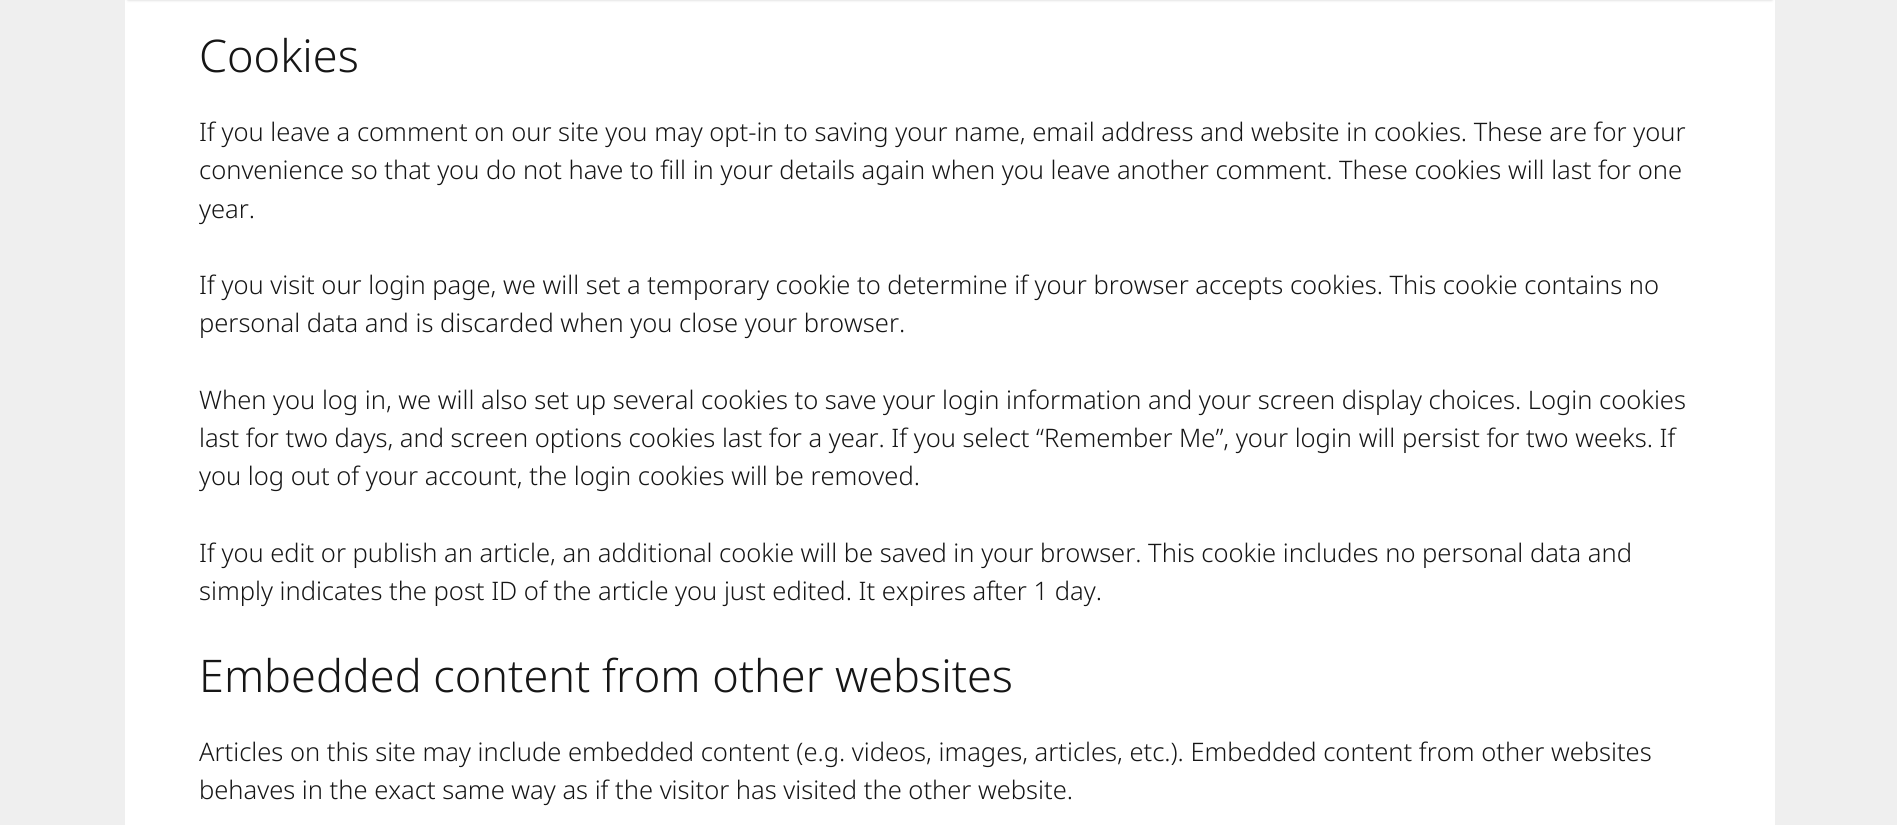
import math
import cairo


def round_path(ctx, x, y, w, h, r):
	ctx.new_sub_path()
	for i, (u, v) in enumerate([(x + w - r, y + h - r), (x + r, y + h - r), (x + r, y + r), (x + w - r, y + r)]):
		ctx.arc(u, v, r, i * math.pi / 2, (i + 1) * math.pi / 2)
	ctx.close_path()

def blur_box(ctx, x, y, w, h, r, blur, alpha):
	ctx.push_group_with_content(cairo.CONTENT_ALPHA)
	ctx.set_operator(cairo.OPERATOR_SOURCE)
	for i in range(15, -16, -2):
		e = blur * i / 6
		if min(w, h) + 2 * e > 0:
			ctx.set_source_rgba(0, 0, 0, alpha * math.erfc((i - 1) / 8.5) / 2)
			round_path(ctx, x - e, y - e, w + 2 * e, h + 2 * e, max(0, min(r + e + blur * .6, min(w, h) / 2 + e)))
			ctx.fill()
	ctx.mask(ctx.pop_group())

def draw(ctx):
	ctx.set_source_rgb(0.937, 0.937, 0.937)
	ctx.paint()
	ctx.set_source_rgb(1, 1, 1)
	ctx.rectangle(125, 0, 1650, 825)
	ctx.fill()
	ctx.set_source_rgb(0, 0, 0)
	blur_box(ctx, 128, -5, 1644, 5, 0, 1.5, 0.2)
	ctx.select_font_face('Noto Sans Light')
	ctx.set_font_size(45)
	ctx.set_source_rgb(0.086, 0.086, 0.086)
	ctx.move_to(199, 72)
	ctx.show_text('Cookies')
	ctx.set_font_size(25.5)
	for x, y, s in [
		(199, 141, 'If you leave a comment on our site you may opt-in to saving your name, email address and website in cookies. These are for your'),
		(199, 179, 'convenience so that you do not have to fill in your details again when you leave another comment. These cookies will last for one'),
		(199, 218, 'year.'),
		(199, 294, 'If you visit our login page, we will set a temporary cookie to determine if your browser accepts cookies. This cookie contains no'),
		(199, 332, 'personal data and is discarded when you close your browser.'),
		(199, 409, 'When you log in, we will also set up several cookies to save your login information and your screen display choices. Login cookies'),
		(199, 447, 'last for two days, and screen options cookies last for a year. If you select “Remember Me”, your login will persist for two weeks. If'),
		(199, 485, 'you log out of your account, the login cookies will be removed.'),
		(199, 562, 'If you edit or publish an article, an additional cookie will be saved in your browser. This cookie includes no personal data and'),
		(199, 600, 'simply indicates the post ID of the article you just edited. It expires after 1 day.'),
	]:
		ctx.move_to(x, y)
		ctx.show_text(s)
	ctx.set_font_size(45)
	ctx.move_to(199, 692)
	ctx.show_text('Embedded content from other websites')
	ctx.set_font_size(25.5)
	ctx.move_to(199, 761)
	ctx.show_text('Articles on this site may include embedded content (e.g. videos, images, articles, etc.). Embedded content from other websites')
	ctx.move_to(199, 799)
	ctx.show_text('behaves in the exact same way as if the visitor has visited the other website.')


surface = cairo.ImageSurface(cairo.FORMAT_RGB24, 1897, 825)
ctx = cairo.Context(surface)
options = cairo.FontOptions()
options.set_hint_metrics(cairo.HINT_METRICS_OFF)
options.set_hint_style(cairo.HINT_STYLE_NONE)
ctx.set_font_options(options)
ctx.set_miter_limit(4)
draw(ctx)
surface.write_to_png('image.png')
